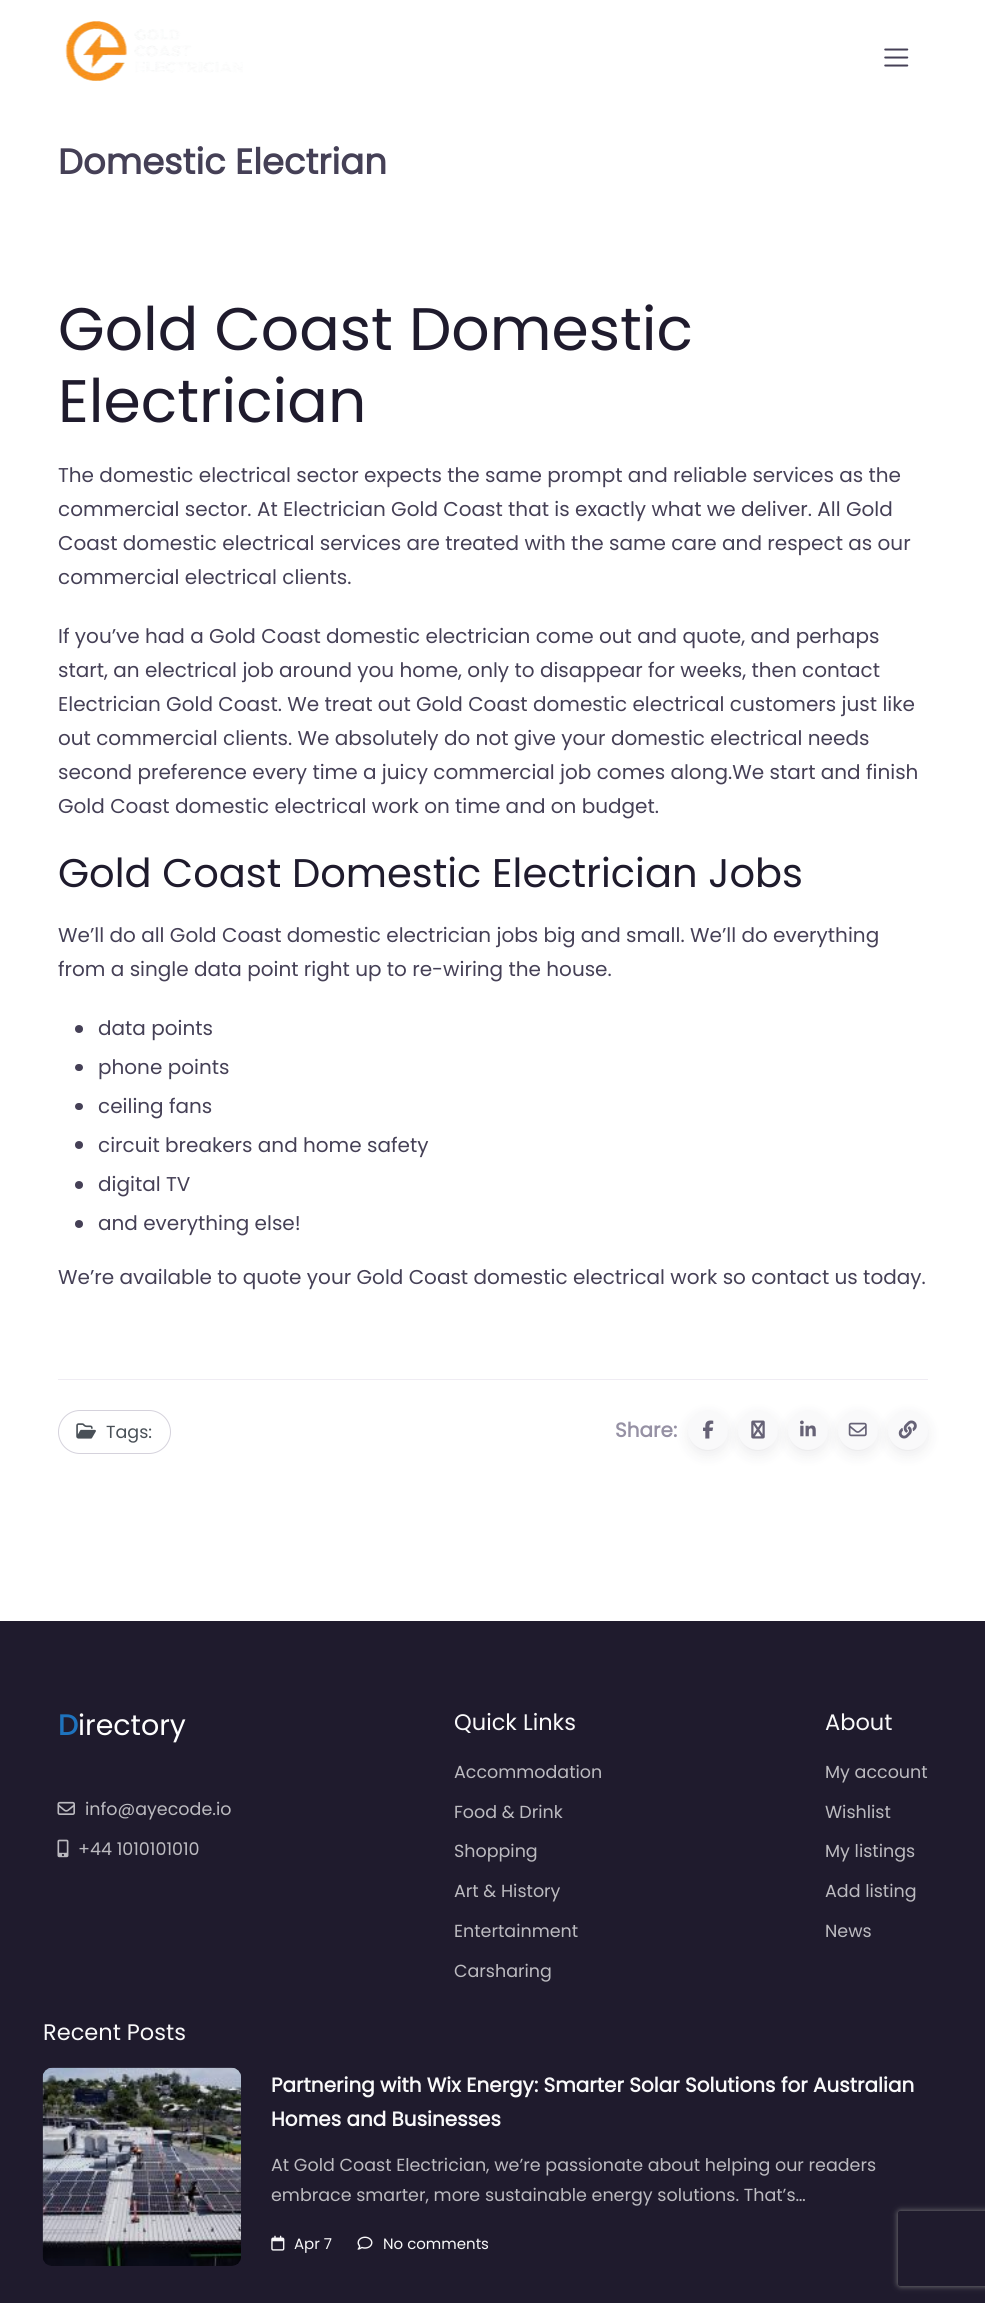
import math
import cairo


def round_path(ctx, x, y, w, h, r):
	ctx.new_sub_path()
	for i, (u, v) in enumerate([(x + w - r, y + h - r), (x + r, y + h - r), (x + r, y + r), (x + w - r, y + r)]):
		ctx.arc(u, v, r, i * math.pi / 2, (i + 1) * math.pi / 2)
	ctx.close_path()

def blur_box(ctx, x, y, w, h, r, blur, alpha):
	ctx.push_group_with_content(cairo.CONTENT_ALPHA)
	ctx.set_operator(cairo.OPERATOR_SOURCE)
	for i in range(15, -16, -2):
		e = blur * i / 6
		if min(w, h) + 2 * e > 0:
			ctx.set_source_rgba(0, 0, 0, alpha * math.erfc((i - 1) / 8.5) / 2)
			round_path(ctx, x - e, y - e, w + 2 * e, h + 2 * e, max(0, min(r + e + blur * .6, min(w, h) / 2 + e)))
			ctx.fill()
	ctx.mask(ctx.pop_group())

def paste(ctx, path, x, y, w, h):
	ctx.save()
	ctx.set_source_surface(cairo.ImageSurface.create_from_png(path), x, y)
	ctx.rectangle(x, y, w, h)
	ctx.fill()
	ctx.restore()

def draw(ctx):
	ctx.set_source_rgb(1, 1, 1)
	ctx.paint()
	paste(ctx, 'media/1.png', 65, 21, 178, 60)
	paste(ctx, 'media/2.png', 884, 48, 25, 19)
	ctx.select_font_face('Poppins', cairo.FONT_SLANT_NORMAL, cairo.FONT_WEIGHT_BOLD)
	ctx.set_font_size(35.4)
	ctx.set_source_rgb(0.271, 0.251, 0.337)
	ctx.move_to(58, 174)
	ctx.show_text('Domestic Electrian')
	ctx.select_font_face('Poppins')
	ctx.set_font_size(60)
	ctx.set_source_rgb(0.122, 0.106, 0.176)
	ctx.move_to(58, 350)
	ctx.show_text('Gold Coast Domestic')
	ctx.move_to(58, 422)
	ctx.show_text('Electrician')
	ctx.set_font_size(20)
	ctx.set_source_rgb(0.271, 0.251, 0.337)
	for x, y, s in [
		(58, 482, 'The domestic electrical sector expects the same prompt and reliable services as the'),
		(58, 516, 'commercial sector. At Electrician Gold Coast that is exactly what we deliver. All Gold'),
		(58, 550, 'Coast domestic electrical services are treated with the same care and respect as our'),
		(58, 584, 'commercial electrical clients.'),
		(58, 643, 'If you’ve had a Gold Coast domestic electrician come out and quote, and perhaps'),
		(58, 677, 'start, an electrical job around you home, only to disappear for weeks, then contact'),
		(58, 711, 'Electrician Gold Coast. We treat out Gold Coast domestic electrical customers just like'),
		(58, 745, 'out commercial clients. We absolutely do not give your domestic electrical needs'),
		(58, 779, 'second preference every time a juicy commercial job comes along.We start and finish'),
		(58, 813, 'Gold Coast domestic electrical work on time and on budget.'),
	]:
		ctx.move_to(x, y)
		ctx.show_text(s)
	ctx.set_font_size(40)
	ctx.set_source_rgb(0.122, 0.106, 0.176)
	ctx.move_to(58, 887)
	ctx.show_text('Gold Coast Domestic Electrician Jobs')
	ctx.set_font_size(20)
	ctx.set_source_rgb(0.271, 0.251, 0.337)
	ctx.move_to(58, 942)
	ctx.show_text('We’ll do all Gold Coast domestic electrician jobs big and small. We’ll do everything')
	ctx.move_to(58, 976)
	ctx.show_text('from a single data point right up to re-wiring the house.')
	ctx.new_path()
	ctx.arc(79, 1029, 4, 0, 2 * math.pi)
	ctx.fill()
	ctx.move_to(98, 1035)
	ctx.show_text('data points')
	round_path(ctx, 75, 1064, 8, 7, 3.5)
	ctx.fill()
	ctx.move_to(98, 1074)
	ctx.show_text('phone points')
	round_path(ctx, 75, 1103, 8, 7, 3.5)
	ctx.fill()
	ctx.move_to(98, 1113)
	ctx.show_text('ceiling fans')
	ctx.new_path()
	ctx.arc(79, 1145, 4, 0, 2 * math.pi)
	ctx.fill()
	ctx.move_to(98, 1152)
	ctx.show_text('circuit breakers and home safety')
	ctx.new_path()
	ctx.arc(79, 1185, 4, 0, 2 * math.pi)
	ctx.fill()
	ctx.move_to(98, 1191)
	ctx.show_text('digital TV')
	ctx.new_path()
	ctx.arc(79, 1224, 4, 0, 2 * math.pi)
	ctx.fill()
	ctx.move_to(98, 1230)
	ctx.show_text('and everything else!')
	ctx.move_to(58, 1284)
	ctx.show_text('We’re available to quote your Gold Coast domestic electrical work so contact us today.')
	ctx.set_source_rgb(0.937, 0.925, 0.953)
	ctx.rectangle(58, 1379, 870, 1)
	ctx.fill()
	round_path(ctx, 58.5, 1410.5, 112, 43, 21.5)
	ctx.set_source_rgb(0.835, 0.824, 0.863)
	ctx.set_line_width(1)
	ctx.stroke()
	paste(ctx, 'media/3.png', 76, 1423, 20, 16)
	ctx.set_font_size(17.5)
	ctx.set_source_rgb(0.286, 0.314, 0.341)
	ctx.move_to(106, 1438)
	ctx.show_text('Tags:')
	ctx.select_font_face('Poppins', cairo.FONT_SLANT_NORMAL, cairo.FONT_WEIGHT_BOLD)
	ctx.set_font_size(20)
	ctx.set_source_rgb(0.588, 0.569, 0.643)
	ctx.move_to(615, 1437)
	ctx.show_text('Share:')
	ctx.set_source_rgb(0.122, 0.106, 0.176)
	blur_box(ctx, 688, 1415, 40, 40, 20, 7.5, 0.08)
	blur_box(ctx, 690, 1415, 35, 35, 17.5, 1, 0.08)
	ctx.set_source_rgb(0.976, 0.973, 0.98)
	ctx.arc(708, 1430, 20, 0, 2 * math.pi)
	ctx.fill()
	paste(ctx, 'media/4.png', 703, 1420, 11, 19)
	ctx.set_source_rgb(0.122, 0.106, 0.176)
	blur_box(ctx, 738, 1415, 40, 40, 20, 7.5, 0.08)
	blur_box(ctx, 740, 1415, 35, 35, 17.5, 1, 0.08)
	ctx.set_source_rgb(0.976, 0.973, 0.98)
	ctx.arc(758, 1430, 20, 0, 2 * math.pi)
	ctx.fill()
	paste(ctx, 'media/5.png', 751, 1420, 14, 19)
	ctx.set_source_rgb(0.122, 0.106, 0.176)
	blur_box(ctx, 788, 1415, 40, 40, 20, 7.5, 0.08)
	blur_box(ctx, 790, 1415, 35, 35, 17.5, 1, 0.08)
	ctx.set_source_rgb(0.976, 0.973, 0.98)
	ctx.arc(808, 1430, 20, 0, 2 * math.pi)
	ctx.fill()
	paste(ctx, 'media/6.png', 800, 1420, 16, 17)
	ctx.set_source_rgb(0.122, 0.106, 0.176)
	blur_box(ctx, 838, 1415, 40, 40, 20, 7.5, 0.08)
	blur_box(ctx, 840, 1415, 35, 35, 17.5, 1, 0.08)
	ctx.set_source_rgb(0.976, 0.973, 0.98)
	ctx.arc(858, 1430, 20, 0, 2 * math.pi)
	ctx.fill()
	paste(ctx, 'media/7.png', 848, 1422, 19, 15)
	ctx.set_source_rgb(0.122, 0.106, 0.176)
	blur_box(ctx, 888, 1415, 40, 40, 20, 7.5, 0.08)
	blur_box(ctx, 890, 1415, 35, 35, 17.5, 1, 0.08)
	ctx.set_source_rgb(0.976, 0.973, 0.98)
	ctx.arc(908, 1430, 20, 0, 2 * math.pi)
	ctx.fill()
	paste(ctx, 'media/8.png', 898, 1420, 19, 19)
	ctx.set_source_rgb(0.122, 0.106, 0.176)
	ctx.rectangle(0, 1621, 985, 682)
	ctx.fill()
	ctx.set_font_size(28.5)
	ctx.set_source_rgb(0.118, 0.451, 0.745)
	ctx.move_to(58, 1735)
	ctx.show_text('D')
	ctx.select_font_face('Poppins')
	ctx.set_source_rgb(1, 1, 1)
	ctx.move_to(78, 1735)
	ctx.show_text('irectory')
	paste(ctx, 'media/9.png', 57, 1801, 18, 14)
	ctx.set_font_size(17.5)
	ctx.set_source_rgb(0.737, 0.733, 0.753)
	ctx.move_to(85, 1815)
	ctx.show_text('info@ayecode.io')
	paste(ctx, 'media/10.png', 57, 1839, 12, 19)
	ctx.move_to(78, 1855)
	ctx.show_text('+44 1010101010')
	ctx.set_font_size(22.5)
	ctx.set_source_rgb(0.976, 0.973, 0.98)
	ctx.move_to(454, 1730)
	ctx.show_text('Quick Links')
	ctx.set_font_size(17.5)
	ctx.set_source_rgb(0.737, 0.733, 0.753)
	for x, y, s in [
		(454, 1778, 'Accommodation'),
		(454, 1818, 'Food & Drink'),
		(454, 1857, 'Shopping'),
		(454, 1897, 'Art & History'),
		(454, 1937, 'Entertainment'),
		(454, 1977, 'Carsharing'),
	]:
		ctx.move_to(x, y)
		ctx.show_text(s)
	ctx.set_font_size(22.5)
	ctx.set_source_rgb(0.976, 0.973, 0.98)
	ctx.move_to(825, 1730)
	ctx.show_text('About')
	ctx.set_font_size(17.5)
	ctx.set_source_rgb(0.737, 0.733, 0.753)
	for x, y, s in [
		(825, 1778, 'My account'),
		(825, 1818, 'Wishlist'),
		(825, 1857, 'My listings'),
		(825, 1897, 'Add listing'),
		(825, 1937, 'News'),
	]:
		ctx.move_to(x, y)
		ctx.show_text(s)
	ctx.set_font_size(22.5)
	ctx.set_source_rgb(0.976, 0.973, 0.98)
	ctx.move_to(43, 2040)
	ctx.show_text('Recent Posts')
	paste(ctx, 'media/11.png', 42, 2067, 199, 199)
	ctx.select_font_face('Poppins', cairo.FONT_SLANT_NORMAL, cairo.FONT_WEIGHT_BOLD)
	ctx.set_font_size(20)
	ctx.move_to(271, 2092)
	ctx.show_text('Partnering with Wix Energy: Smarter Solar Solutions for Australian')
	ctx.move_to(271, 2126)
	ctx.show_text('Homes and Businesses')
	ctx.select_font_face('Poppins')
	ctx.set_font_size(17.5)
	ctx.set_source_rgb(0.737, 0.733, 0.753)
	ctx.move_to(271, 2171)
	ctx.show_text('At Gold Coast Electrician, we’re passionate about helping our readers')
	ctx.move_to(271, 2201)
	ctx.show_text('embrace smarter, more sustainable energy solutions. That’s…')
	paste(ctx, 'media/12.png', 271, 2235, 14, 16)
	ctx.set_font_size(15)
	ctx.set_source_rgb(0.976, 0.973, 0.98)
	ctx.move_to(294, 2249)
	ctx.show_text('Apr 7')
	paste(ctx, 'media/13.png', 357, 2236, 16, 14)
	ctx.move_to(383, 2249)
	ctx.show_text('No comments')
	ctx.save()
	ctx.set_fill_rule(cairo.FILL_RULE_EVEN_ODD)
	ctx.new_path()
	ctx.move_to(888, 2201)
	ctx.line_to(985, 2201)
	ctx.line_to(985, 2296)
	ctx.line_to(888, 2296)
	ctx.close_path()
	ctx.move_to(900.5, 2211)
	ctx.line_to(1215.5, 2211)
	ctx.curve_to(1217, 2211, 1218, 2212, 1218, 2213.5)
	ctx.line_to(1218, 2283.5)
	ctx.curve_to(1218, 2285, 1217, 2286, 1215.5, 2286)
	ctx.line_to(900.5, 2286)
	ctx.curve_to(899, 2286, 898, 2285, 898, 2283.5)
	ctx.line_to(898, 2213.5)
	ctx.curve_to(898, 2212, 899, 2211, 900.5, 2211)
	ctx.close_path()
	ctx.clip()
	ctx.set_source_rgb(0.502, 0.502, 0.502)
	blur_box(ctx, 898, 2211, 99, 75, 2.5, 3, 1)
	ctx.restore()


surface = cairo.ImageSurface(cairo.FORMAT_RGB24, 985, 2303)
ctx = cairo.Context(surface)
options = cairo.FontOptions()
options.set_hint_metrics(cairo.HINT_METRICS_OFF)
options.set_hint_style(cairo.HINT_STYLE_NONE)
ctx.set_font_options(options)
ctx.set_miter_limit(4)
draw(ctx)
surface.write_to_png('image.png')
